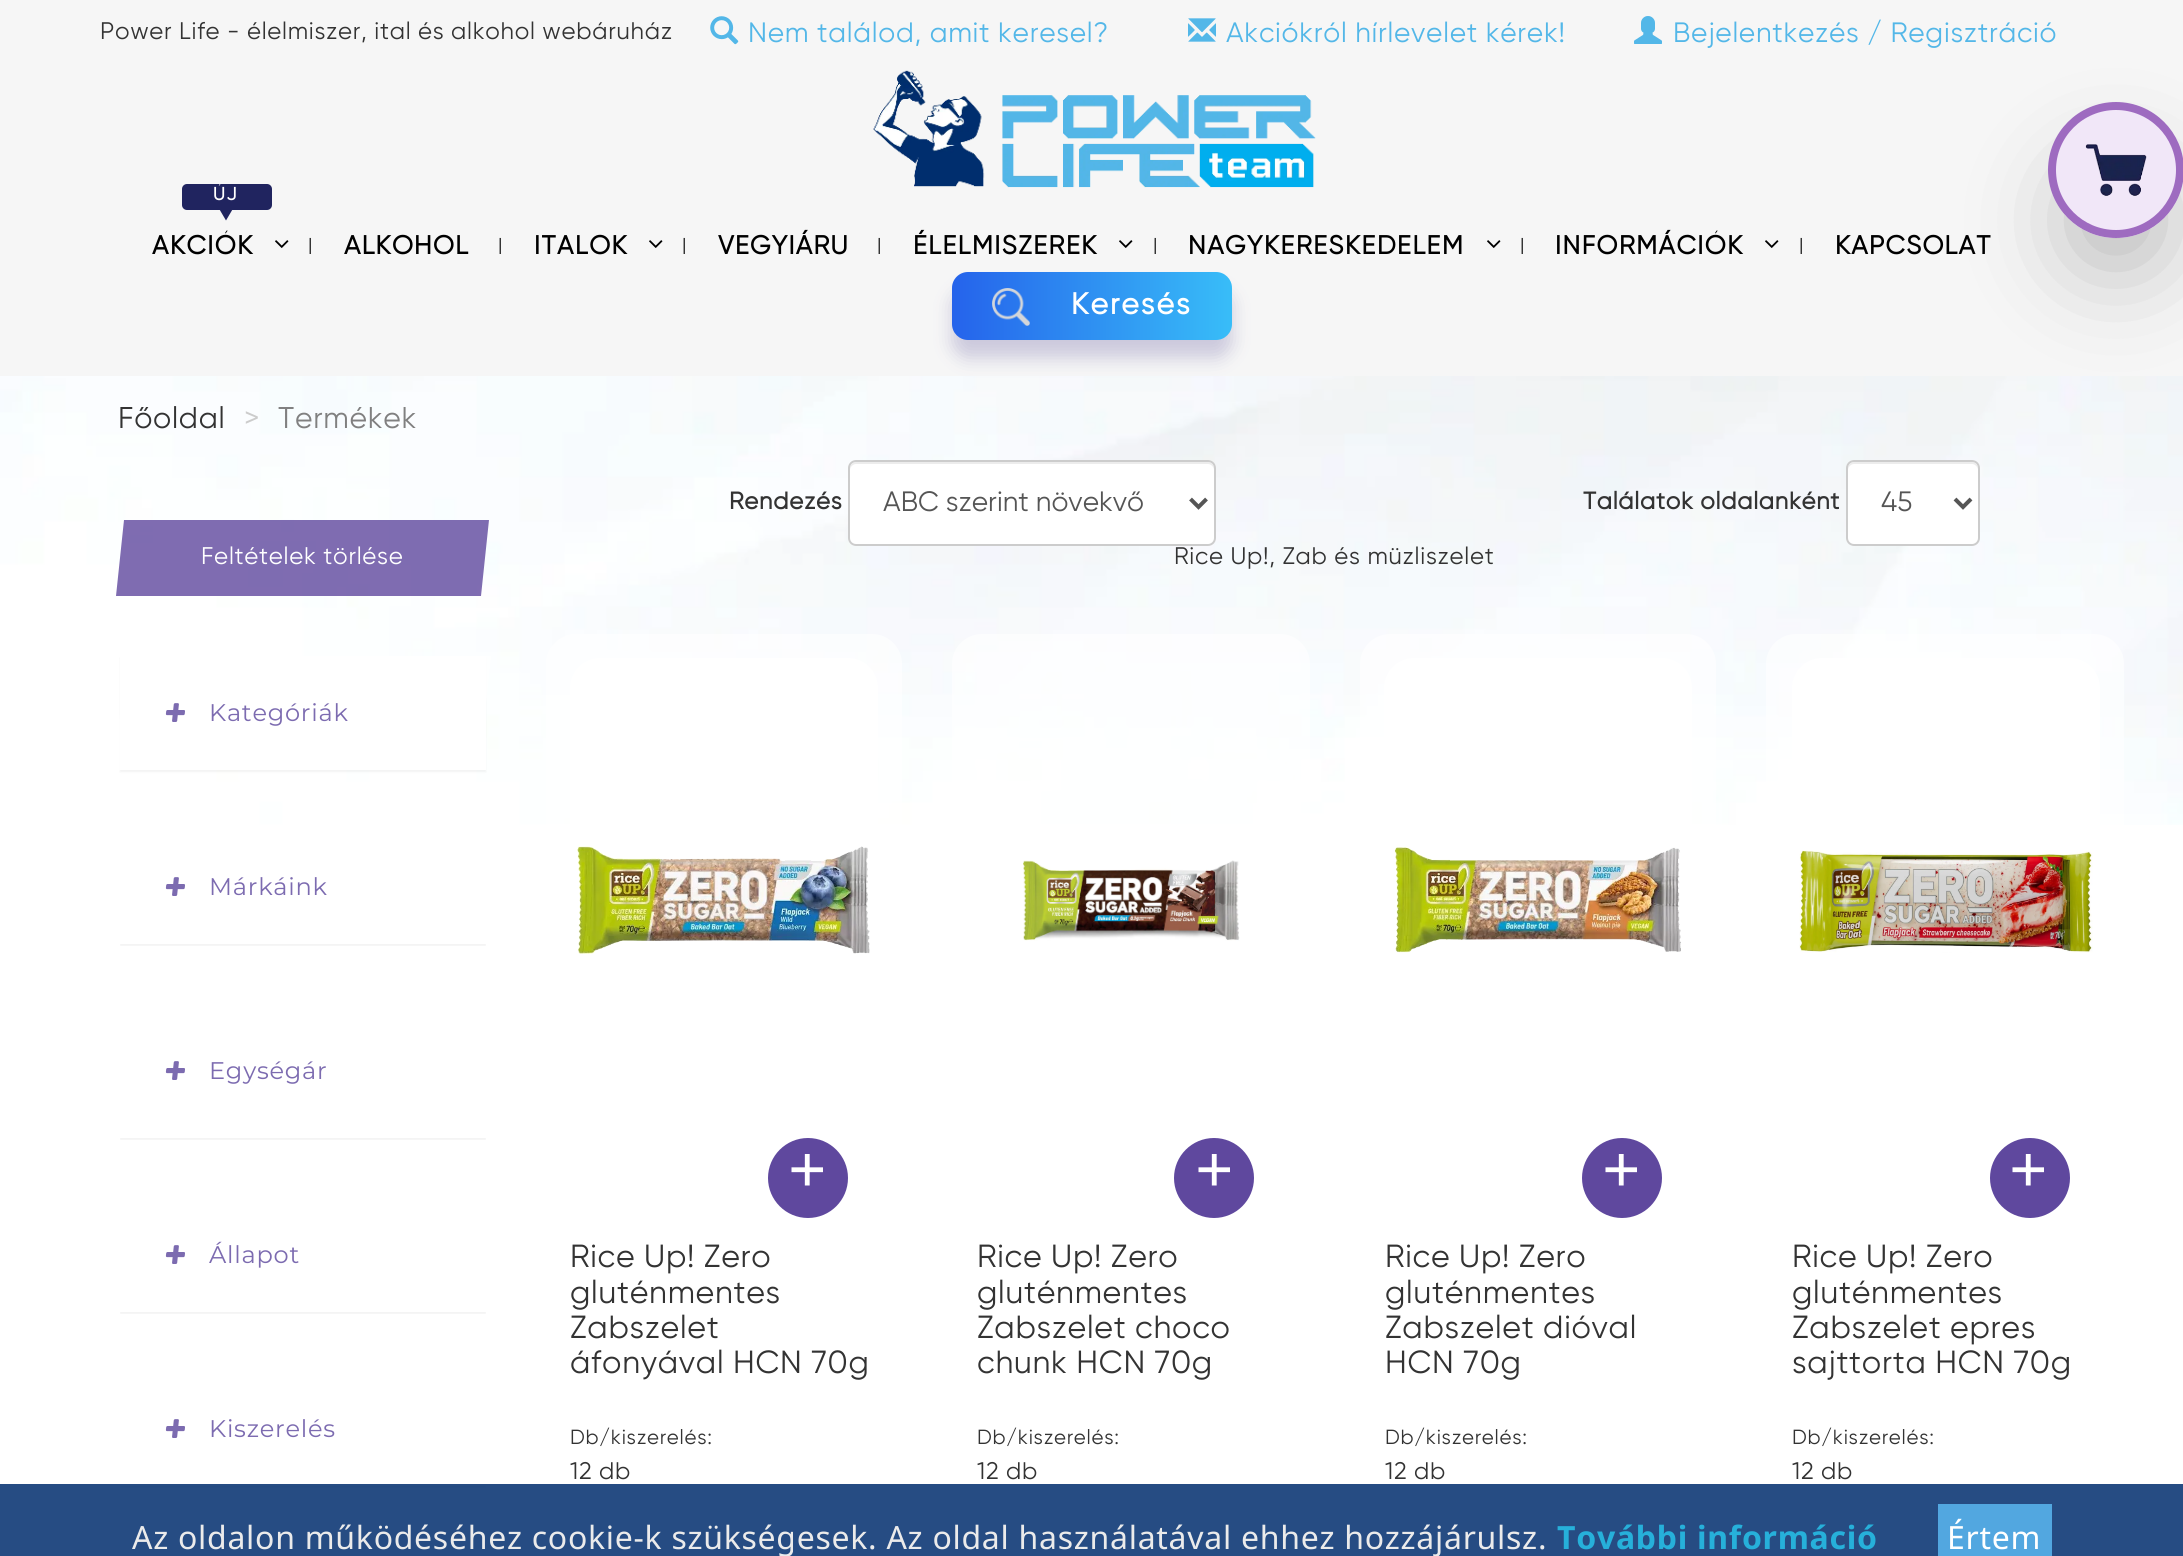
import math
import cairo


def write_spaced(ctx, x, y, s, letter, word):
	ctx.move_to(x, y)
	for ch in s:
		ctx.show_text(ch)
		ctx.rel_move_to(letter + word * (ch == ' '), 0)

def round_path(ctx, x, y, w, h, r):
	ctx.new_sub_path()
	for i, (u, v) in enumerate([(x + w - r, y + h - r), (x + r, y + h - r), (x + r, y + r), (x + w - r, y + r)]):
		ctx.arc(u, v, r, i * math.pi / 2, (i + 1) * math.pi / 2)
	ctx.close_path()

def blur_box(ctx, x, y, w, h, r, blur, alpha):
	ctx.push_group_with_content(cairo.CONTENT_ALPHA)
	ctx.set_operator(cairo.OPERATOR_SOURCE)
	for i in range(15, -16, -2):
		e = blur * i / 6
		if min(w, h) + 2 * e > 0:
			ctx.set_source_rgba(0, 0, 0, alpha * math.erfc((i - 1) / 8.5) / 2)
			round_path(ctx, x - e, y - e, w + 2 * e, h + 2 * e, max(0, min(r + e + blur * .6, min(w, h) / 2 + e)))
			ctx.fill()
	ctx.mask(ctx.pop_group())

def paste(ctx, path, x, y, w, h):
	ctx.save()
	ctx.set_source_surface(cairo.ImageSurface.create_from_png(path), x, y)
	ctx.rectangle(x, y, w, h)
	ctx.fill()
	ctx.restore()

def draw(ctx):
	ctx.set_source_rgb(1, 1, 1)
	ctx.paint()
	paste(ctx, 'media/1.png', 0, 376, 2183, 449)
	ctx.set_source_rgb(0.961, 0.961, 0.961)
	ctx.rectangle(0, 0, 2183, 376)
	ctx.fill()
	ctx.select_font_face('Gilroy')
	ctx.set_font_size(24)
	ctx.set_source_rgb(0.2, 0.2, 0.2)
	write_spaced(ctx, 100, 39, 'Power Life - élelmiszer, ital és alkohol webáruház', 0.72, 0)
	paste(ctx, 'media/2.png', 710, 16, 29, 29)
	ctx.set_font_size(28)
	ctx.set_source_rgb(0.325, 0.718, 0.91)
	write_spaced(ctx, 748, 42, 'Nem találod, amit keresel?', 0.72, 0)
	paste(ctx, 'media/3.png', 1188, 18, 28, 24)
	write_spaced(ctx, 1226, 42, 'Akciókról hírlevelet kérek!', 0.72, 0)
	paste(ctx, 'media/4.png', 1634, 16, 28, 28)
	write_spaced(ctx, 1673, 42, 'Bejelentkezés / Regisztráció', 0.72, 0)
	paste(ctx, 'media/5.png', 873, 70, 443, 118)
	ctx.save()
	ctx.set_fill_rule(cairo.FILL_RULE_EVEN_ODD)
	ctx.new_path()
	ctx.move_to(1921, 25)
	ctx.line_to(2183, 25)
	ctx.line_to(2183, 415)
	ctx.line_to(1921, 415)
	ctx.close_path()
	ctx.move_to(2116, 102)
	ctx.curve_to(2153.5, 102, 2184, 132.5, 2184, 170)
	ctx.curve_to(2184, 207.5, 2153.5, 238, 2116, 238)
	ctx.curve_to(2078.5, 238, 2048, 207.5, 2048, 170)
	ctx.curve_to(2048, 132.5, 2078.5, 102, 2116, 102)
	ctx.close_path()
	ctx.clip()
	ctx.set_source_rgb(0, 0, 0)
	blur_box(ctx, 2072, 176, 88, 88, 44, 50, 0.25)
	ctx.restore()
	ctx.set_source_rgba(0.902, 0.757, 1, 0.27)
	ctx.arc(2116, 170, 64, 0, 2 * math.pi)
	ctx.fill_preserve()
	ctx.set_source_rgb(0.62, 0.42, 0.753)
	ctx.set_line_width(8)
	ctx.stroke()
	paste(ctx, 'media/6.png', 2085, 144, 62, 52)
	ctx.set_source_rgb(0.125, 0.141, 0.373)
	round_path(ctx, 182, 184, 90, 26, 5)
	ctx.fill()
	ctx.select_font_face('Gilroy', cairo.FONT_SLANT_NORMAL, cairo.FONT_WEIGHT_BOLD)
	ctx.set_font_size(18)
	ctx.set_source_rgb(1, 1, 1)
	write_spaced(ctx, 213, 200, 'ÚJ', 1.5, 0)
	ctx.set_source_rgb(0.125, 0.141, 0.373)
	ctx.new_path()
	ctx.move_to(226, 220.5)
	ctx.line_to(236, 203.5)
	ctx.line_to(216, 203.5)
	ctx.close_path()
	ctx.fill()
	ctx.set_font_size(26)
	ctx.set_source_rgb(0, 0, 0)
	write_spaced(ctx, 152, 254, 'AKCIÓK', 1.5, 0)
	paste(ctx, 'media/7.png', 275, 240, 14, 8)
	ctx.select_font_face('Gilroy')
	ctx.set_font_size(22)
	ctx.set_source_rgb(0.2, 0.2, 0.2)
	write_spaced(ctx, 308, 254, 'l', 1.25, 0)
	ctx.select_font_face('Gilroy', cairo.FONT_SLANT_NORMAL, cairo.FONT_WEIGHT_BOLD)
	ctx.set_font_size(26)
	ctx.set_source_rgb(0, 0, 0)
	write_spaced(ctx, 344, 254, 'ALKOHOL', 1.25, 0)
	ctx.select_font_face('Gilroy')
	ctx.set_font_size(22)
	ctx.set_source_rgb(0.2, 0.2, 0.2)
	write_spaced(ctx, 498, 254, 'l', 1.25, 0)
	ctx.select_font_face('Gilroy', cairo.FONT_SLANT_NORMAL, cairo.FONT_WEIGHT_BOLD)
	ctx.set_font_size(26)
	ctx.set_source_rgb(0, 0, 0)
	write_spaced(ctx, 534, 254, 'ITALOK', 1.5, 0)
	paste(ctx, 'media/7.png', 649, 240, 14, 8)
	ctx.select_font_face('Gilroy')
	ctx.set_font_size(22)
	ctx.set_source_rgb(0.2, 0.2, 0.2)
	write_spaced(ctx, 682, 254, 'l', 1.25, 0)
	ctx.select_font_face('Gilroy', cairo.FONT_SLANT_NORMAL, cairo.FONT_WEIGHT_BOLD)
	ctx.set_font_size(26)
	ctx.set_source_rgb(0, 0, 0)
	write_spaced(ctx, 718, 254, 'VEGYIÁRU', 1.25, 0)
	ctx.select_font_face('Gilroy')
	ctx.set_font_size(22)
	ctx.set_source_rgb(0.2, 0.2, 0.2)
	write_spaced(ctx, 877, 254, 'l', 1.25, 0)
	ctx.select_font_face('Gilroy', cairo.FONT_SLANT_NORMAL, cairo.FONT_WEIGHT_BOLD)
	ctx.set_font_size(26)
	ctx.set_source_rgb(0, 0, 0)
	write_spaced(ctx, 913, 254, 'ÉLELMISZEREK', 1.5, 0)
	paste(ctx, 'media/7.png', 1119, 240, 14, 8)
	ctx.select_font_face('Gilroy')
	ctx.set_font_size(22)
	ctx.set_source_rgb(0.2, 0.2, 0.2)
	write_spaced(ctx, 1153, 254, 'l', 1.25, 0)
	ctx.select_font_face('Gilroy', cairo.FONT_SLANT_NORMAL, cairo.FONT_WEIGHT_BOLD)
	ctx.set_font_size(26)
	ctx.set_source_rgb(0, 0, 0)
	write_spaced(ctx, 1188, 254, 'NAGYKERESKEDELEM', 1.5, 0)
	paste(ctx, 'media/7.png', 1487, 240, 14, 8)
	ctx.select_font_face('Gilroy')
	ctx.set_font_size(22)
	ctx.set_source_rgb(0.2, 0.2, 0.2)
	write_spaced(ctx, 1520, 254, 'l', 1.25, 0)
	ctx.select_font_face('Gilroy', cairo.FONT_SLANT_NORMAL, cairo.FONT_WEIGHT_BOLD)
	ctx.set_font_size(26)
	ctx.set_source_rgb(0, 0, 0)
	write_spaced(ctx, 1555, 254, 'INFORMÁCIÓK', 1.5, 0)
	paste(ctx, 'media/7.png', 1765, 240, 14, 8)
	ctx.select_font_face('Gilroy')
	ctx.set_font_size(22)
	ctx.set_source_rgb(0.2, 0.2, 0.2)
	write_spaced(ctx, 1799, 254, 'l', 1.25, 0)
	ctx.select_font_face('Gilroy', cairo.FONT_SLANT_NORMAL, cairo.FONT_WEIGHT_BOLD)
	ctx.set_font_size(26)
	ctx.set_source_rgb(0, 0, 0)
	write_spaced(ctx, 1835, 254, 'KAPCSOLAT', 1.25, 0)
	ctx.set_source_rgb(0.275, 0.227, 0.545)
	blur_box(ctx, 952, 290, 280, 68, 16, 9, 0.24)
	gradient = cairo.LinearGradient(952, 306, 1232, 306)
	gradient.add_color_stop_rgba(0, 0.145, 0.388, 0.922, 1)
	gradient.add_color_stop_rgba(1, 0.22, 0.741, 0.973, 1)
	ctx.set_source(gradient)
	round_path(ctx, 952, 272, 280, 68, 16)
	ctx.fill()
	paste(ctx, 'media/8.png', 992, 288, 38, 38)
	ctx.set_font_size(30)
	ctx.set_source_rgb(1, 1, 1)
	write_spaced(ctx, 1071, 314, 'Keresés', 2, 0)
	ctx.select_font_face('Gilroy')
	ctx.set_source_rgb(0.2, 0.2, 0.2)
	write_spaced(ctx, 118, 428, 'Főoldal', 0.72, 0)
	ctx.set_source_rgb(0.8, 0.8, 0.8)
	write_spaced(ctx, 244, 428, '>', 0.72, 0)
	ctx.set_source_rgb(0.502, 0.502, 0.502)
	write_spaced(ctx, 278, 428, 'Termékek', 0.72, 0)
	ctx.set_source_rgba(0.373, 0.282, 0.62, 0.8)
	ctx.new_path()
	ctx.move_to(124, 520)
	ctx.line_to(489, 520)
	ctx.line_to(481, 596)
	ctx.line_to(116, 596)
	ctx.close_path()
	ctx.fill()
	ctx.set_font_size(24.1)
	ctx.set_source_rgb(1, 1, 1)
	write_spaced(ctx, 201, 564, 'Feltételek törlése', 0.7, 0)
	ctx.set_source_rgb(0, 0, 0)
	blur_box(ctx, 120, 658, 366, 114, 0, 1, 0.05)
	ctx.set_source_rgb(1, 1, 1)
	ctx.rectangle(120, 656, 366, 114)
	ctx.fill()
	ctx.set_source_rgba(1, 1, 1, 0.8)
	ctx.new_path()
	ctx.move_to(126, 656)
	ctx.line_to(491, 656)
	ctx.line_to(479, 770)
	ctx.line_to(114, 770)
	ctx.close_path()
	ctx.fill()
	paste(ctx, 'media/9.png', 165, 703, 20, 19)
	ctx.select_font_face('Montserrat')
	ctx.set_source_rgb(0.486, 0.42, 0.69)
	write_spaced(ctx, 209, 721, 'Kategóriák', 0.75, 0)
	ctx.save()
	ctx.rectangle(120, 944, 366, 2)
	ctx.clip()
	ctx.set_source_rgb(0, 0, 0)
	blur_box(ctx, 120, 832, 366, 114, 0, 1, 0.05)
	ctx.restore()
	ctx.set_source_rgba(1, 1, 1, 0.8)
	ctx.new_path()
	ctx.move_to(126, 830)
	ctx.line_to(491, 830)
	ctx.line_to(479, 944)
	ctx.line_to(114, 944)
	ctx.close_path()
	ctx.fill()
	paste(ctx, 'media/9.png', 165, 877, 20, 19)
	ctx.set_source_rgb(0.486, 0.42, 0.69)
	write_spaced(ctx, 209, 895, 'Márkáink', 0.75, 0)
	ctx.save()
	ctx.rectangle(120, 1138, 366, 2)
	ctx.clip()
	ctx.set_source_rgb(0, 0, 0)
	blur_box(ctx, 120, 1006, 366, 134, 0, 1, 0.05)
	ctx.restore()
	ctx.set_source_rgba(1, 1, 1, 0.8)
	ctx.new_path()
	ctx.move_to(127, 1004)
	ctx.line_to(492, 1004)
	ctx.line_to(478, 1138)
	ctx.line_to(113, 1138)
	ctx.close_path()
	ctx.fill()
	paste(ctx, 'media/9.png', 165, 1061, 20, 19)
	ctx.set_source_rgb(0.486, 0.42, 0.69)
	write_spaced(ctx, 209, 1079, 'Egységár', 0.75, 0)
	ctx.save()
	ctx.rectangle(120, 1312, 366, 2)
	ctx.clip()
	ctx.set_source_rgb(0, 0, 0)
	blur_box(ctx, 120, 1200, 366, 114, 0, 1, 0.05)
	ctx.restore()
	ctx.set_source_rgba(1, 1, 1, 0.8)
	ctx.new_path()
	ctx.move_to(126, 1198)
	ctx.line_to(491, 1198)
	ctx.line_to(479, 1312)
	ctx.line_to(114, 1312)
	ctx.close_path()
	ctx.fill()
	paste(ctx, 'media/9.png', 165, 1245, 20, 19)
	ctx.set_source_rgb(0.486, 0.42, 0.69)
	write_spaced(ctx, 209, 1263, 'Állapot', 0.75, 0)
	ctx.save()
	ctx.rectangle(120, 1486, 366, 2)
	ctx.clip()
	ctx.set_source_rgb(0, 0, 0)
	blur_box(ctx, 120, 1374, 366, 114, 0, 1, 0.05)
	ctx.restore()
	ctx.set_source_rgba(1, 1, 1, 0.8)
	ctx.new_path()
	ctx.move_to(126, 1372)
	ctx.line_to(491, 1372)
	ctx.line_to(479, 1486)
	ctx.line_to(114, 1486)
	ctx.close_path()
	ctx.fill()
	paste(ctx, 'media/9.png', 165, 1419, 20, 19)
	ctx.set_source_rgb(0.486, 0.42, 0.69)
	write_spaced(ctx, 209, 1437, 'Kiszerelés', 0.75, 0)
	ctx.select_font_face('Gilroy', cairo.FONT_SLANT_NORMAL, cairo.FONT_WEIGHT_BOLD)
	ctx.set_font_size(24)
	ctx.set_source_rgb(0.2, 0.2, 0.2)
	write_spaced(ctx, 729, 509, 'Rendezés', 0.72, 0)
	ctx.set_source_rgb(1, 1, 1)
	round_path(ctx, 848, 460, 368, 86, 8)
	ctx.fill()
	ctx.set_source_rgb(0.925, 0.925, 0.925)
	ctx.new_path()
	ctx.move_to(856, 464)
	ctx.line_to(1208, 464)
	ctx.curve_to(1211, 464, 1214, 467, 1214, 470)
	ctx.line_to(1214, 468)
	ctx.curve_to(1214, 465, 1211, 462, 1208, 462)
	ctx.line_to(856, 462)
	ctx.curve_to(853, 462, 850, 465, 850, 468)
	ctx.line_to(850, 470)
	ctx.curve_to(850, 467, 853, 464, 856, 464)
	ctx.close_path()
	ctx.fill()
	round_path(ctx, 849, 461, 366, 84, 7)
	ctx.set_source_rgb(0.8, 0.8, 0.8)
	ctx.set_line_width(2)
	ctx.stroke()
	ctx.new_path()
	ctx.move_to(1190.5, 499)
	ctx.line_to(1198.5, 507)
	ctx.line_to(1206.5, 499)
	ctx.set_source_rgb(0.333, 0.333, 0.333)
	ctx.set_line_width(4)
	ctx.stroke()
	ctx.select_font_face('Gilroy')
	ctx.set_font_size(28)
	ctx.move_to(883, 511)
	ctx.show_text('ABC szerint növekvő')
	ctx.select_font_face('Gilroy', cairo.FONT_SLANT_NORMAL, cairo.FONT_WEIGHT_BOLD)
	ctx.set_font_size(24)
	ctx.set_source_rgb(0.2, 0.2, 0.2)
	write_spaced(ctx, 1583, 509, 'Találatok oldalanként', 0.72, 0)
	ctx.set_source_rgb(1, 1, 1)
	round_path(ctx, 1846, 460, 134, 86, 8)
	ctx.fill()
	ctx.set_source_rgb(0.925, 0.925, 0.925)
	ctx.new_path()
	ctx.move_to(1854, 464)
	ctx.line_to(1972, 464)
	ctx.curve_to(1975, 464, 1978, 467, 1978, 470)
	ctx.line_to(1978, 468)
	ctx.curve_to(1978, 465, 1975, 462, 1972, 462)
	ctx.line_to(1854, 462)
	ctx.curve_to(1851, 462, 1848, 465, 1848, 468)
	ctx.line_to(1848, 470)
	ctx.curve_to(1848, 467, 1851, 464, 1854, 464)
	ctx.close_path()
	ctx.fill()
	round_path(ctx, 1847, 461, 132, 84, 7)
	ctx.set_source_rgb(0.8, 0.8, 0.8)
	ctx.set_line_width(2)
	ctx.stroke()
	ctx.new_path()
	ctx.move_to(1955, 499)
	ctx.line_to(1963, 507)
	ctx.line_to(1971, 499)
	ctx.set_source_rgb(0.333, 0.333, 0.333)
	ctx.set_line_width(4)
	ctx.stroke()
	ctx.select_font_face('Gilroy')
	ctx.set_font_size(28)
	ctx.move_to(1881, 511)
	ctx.show_text('45')
	ctx.set_font_size(24)
	ctx.set_source_rgb(0.2, 0.2, 0.2)
	write_spaced(ctx, 1174, 564, 'Rice Up!, Zab és müzliszelet', 0.72, 0)
	ctx.set_source_rgba(1, 1, 1, 0.6)
	round_path(ctx, 546, 634, 356, 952, 30)
	ctx.fill()
	ctx.set_source_rgba(1, 1, 1, 0.9)
	round_path(ctx, 570, 658, 308, 480, 30)
	ctx.fill()
	paste(ctx, 'media/10.png', 577, 846, 293, 108)
	ctx.set_source_rgb(0.373, 0.282, 0.62)
	ctx.arc(808, 1178, 40, 0, 2 * math.pi)
	ctx.fill()
	ctx.set_font_size(75)
	ctx.set_source_rgb(1, 1, 1)
	write_spaced(ctx, 787, 1196, '+', 0.72, 0)
	ctx.set_font_size(32)
	ctx.set_source_rgb(0.2, 0.2, 0.2)
	for x, y, s in [
		(570, 1267, 'Rice Up! Zero'),
		(570, 1303, 'gluténmentes'),
		(570, 1338, 'Zabszelet'),
		(570, 1373, 'áfonyával HCN 70g'),
	]:
		write_spaced(ctx, x, y, s, 0.72, 0)
	ctx.set_font_size(20.5)
	write_spaced(ctx, 570, 1444, 'Db/kiszerelés:', 0.72, 0)
	ctx.set_font_size(24)
	write_spaced(ctx, 570, 1479, '12 db', 0.72, 0)
	ctx.set_source_rgba(1, 1, 1, 0.6)
	round_path(ctx, 952, 634, 358, 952, 30)
	ctx.fill()
	paste(ctx, 'media/11.png', 1023, 860, 217, 81)
	ctx.set_source_rgb(0.373, 0.282, 0.62)
	ctx.arc(1214, 1178, 40, 0, 2 * math.pi)
	ctx.fill()
	ctx.set_font_size(75)
	ctx.set_source_rgb(1, 1, 1)
	write_spaced(ctx, 1194, 1196, '+', 0.72, 0)
	ctx.set_font_size(32)
	ctx.set_source_rgb(0.2, 0.2, 0.2)
	for x, y, s in [
		(977, 1267, 'Rice Up! Zero'),
		(977, 1303, 'gluténmentes'),
		(977, 1338, 'Zabszelet choco'),
		(977, 1373, 'chunk HCN 70g'),
	]:
		write_spaced(ctx, x, y, s, 0.72, 0)
	ctx.set_font_size(20.5)
	write_spaced(ctx, 977, 1444, 'Db/kiszerelés:', 0.72, 0)
	ctx.set_font_size(24)
	write_spaced(ctx, 977, 1479, '12 db', 0.72, 0)
	ctx.set_source_rgba(1, 1, 1, 0.6)
	round_path(ctx, 1360, 634, 356, 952, 30)
	ctx.fill()
	ctx.set_source_rgba(1, 1, 1, 0.9)
	round_path(ctx, 1384, 658, 308, 480, 30)
	ctx.fill()
	paste(ctx, 'media/12.png', 1394, 847, 287, 106)
	ctx.set_source_rgb(0.373, 0.282, 0.62)
	ctx.arc(1622, 1178, 40, 0, 2 * math.pi)
	ctx.fill()
	ctx.set_font_size(75)
	ctx.set_source_rgb(1, 1, 1)
	write_spaced(ctx, 1601, 1196, '+', 0.72, 0)
	ctx.set_font_size(32)
	ctx.set_source_rgb(0.2, 0.2, 0.2)
	for x, y, s in [
		(1385, 1267, 'Rice Up! Zero'),
		(1385, 1303, 'gluténmentes'),
		(1385, 1338, 'Zabszelet dióval'),
		(1385, 1373, 'HCN 70g'),
	]:
		write_spaced(ctx, x, y, s, 0.72, 0)
	ctx.set_font_size(20.5)
	write_spaced(ctx, 1385, 1444, 'Db/kiszerelés:', 0.72, 0)
	ctx.set_font_size(24)
	write_spaced(ctx, 1385, 1479, '12 db', 0.72, 0)
	ctx.set_source_rgba(1, 1, 1, 0.6)
	round_path(ctx, 1766, 634, 358, 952, 30)
	ctx.fill()
	ctx.set_source_rgba(1, 1, 1, 0.9)
	round_path(ctx, 1792, 658, 308, 480, 30)
	ctx.fill()
	paste(ctx, 'media/13.png', 1799, 850, 294, 103)
	ctx.set_source_rgb(0.373, 0.282, 0.62)
	ctx.arc(2030, 1178, 40, 0, 2 * math.pi)
	ctx.fill()
	ctx.set_font_size(75)
	ctx.set_source_rgb(1, 1, 1)
	write_spaced(ctx, 2008, 1196, '+', 0.72, 0)
	ctx.set_font_size(32)
	ctx.set_source_rgb(0.2, 0.2, 0.2)
	for x, y, s in [
		(1792, 1267, 'Rice Up! Zero'),
		(1792, 1303, 'gluténmentes'),
		(1792, 1338, 'Zabszelet epres'),
		(1792, 1373, 'sajttorta HCN 70g'),
	]:
		write_spaced(ctx, x, y, s, 0.72, 0)
	ctx.set_font_size(20.5)
	write_spaced(ctx, 1792, 1444, 'Db/kiszerelés:', 0.72, 0)
	ctx.set_font_size(24)
	write_spaced(ctx, 1792, 1479, '12 db', 0.72, 0)
	ctx.set_source_rgba(0, 0.176, 0.431, 0.85)
	ctx.rectangle(0, 1484, 2183, 72)
	ctx.fill()
	ctx.select_font_face('Noto Sans')
	ctx.set_font_size(32)
	ctx.set_source_rgb(0.918, 0.918, 0.918)
	write_spaced(ctx, 132, 1549, 'Az oldalon működéséhez cookie-k szükségesek. Az oldal használatával ehhez hozzájárulsz.', 0.72, 0)
	ctx.select_font_face('Noto Sans', cairo.FONT_SLANT_NORMAL, cairo.FONT_WEIGHT_BOLD)
	ctx.set_source_rgb(0.149, 0.69, 0.855)
	write_spaced(ctx, 1557, 1549, 'További információ', 0.72, 0)
	ctx.set_source_rgb(0.322, 0.655, 0.878)
	ctx.rectangle(1938, 1504, 114, 52)
	ctx.fill()
	ctx.select_font_face('Noto Sans')
	ctx.set_source_rgb(1, 1, 1)
	write_spaced(ctx, 1947, 1549, 'Értem', 0.72, 0)


surface = cairo.ImageSurface(cairo.FORMAT_RGB24, 2183, 1556)
ctx = cairo.Context(surface)
options = cairo.FontOptions()
options.set_hint_metrics(cairo.HINT_METRICS_OFF)
options.set_hint_style(cairo.HINT_STYLE_NONE)
ctx.set_font_options(options)
ctx.set_miter_limit(4)
draw(ctx)
surface.write_to_png('image.png')
